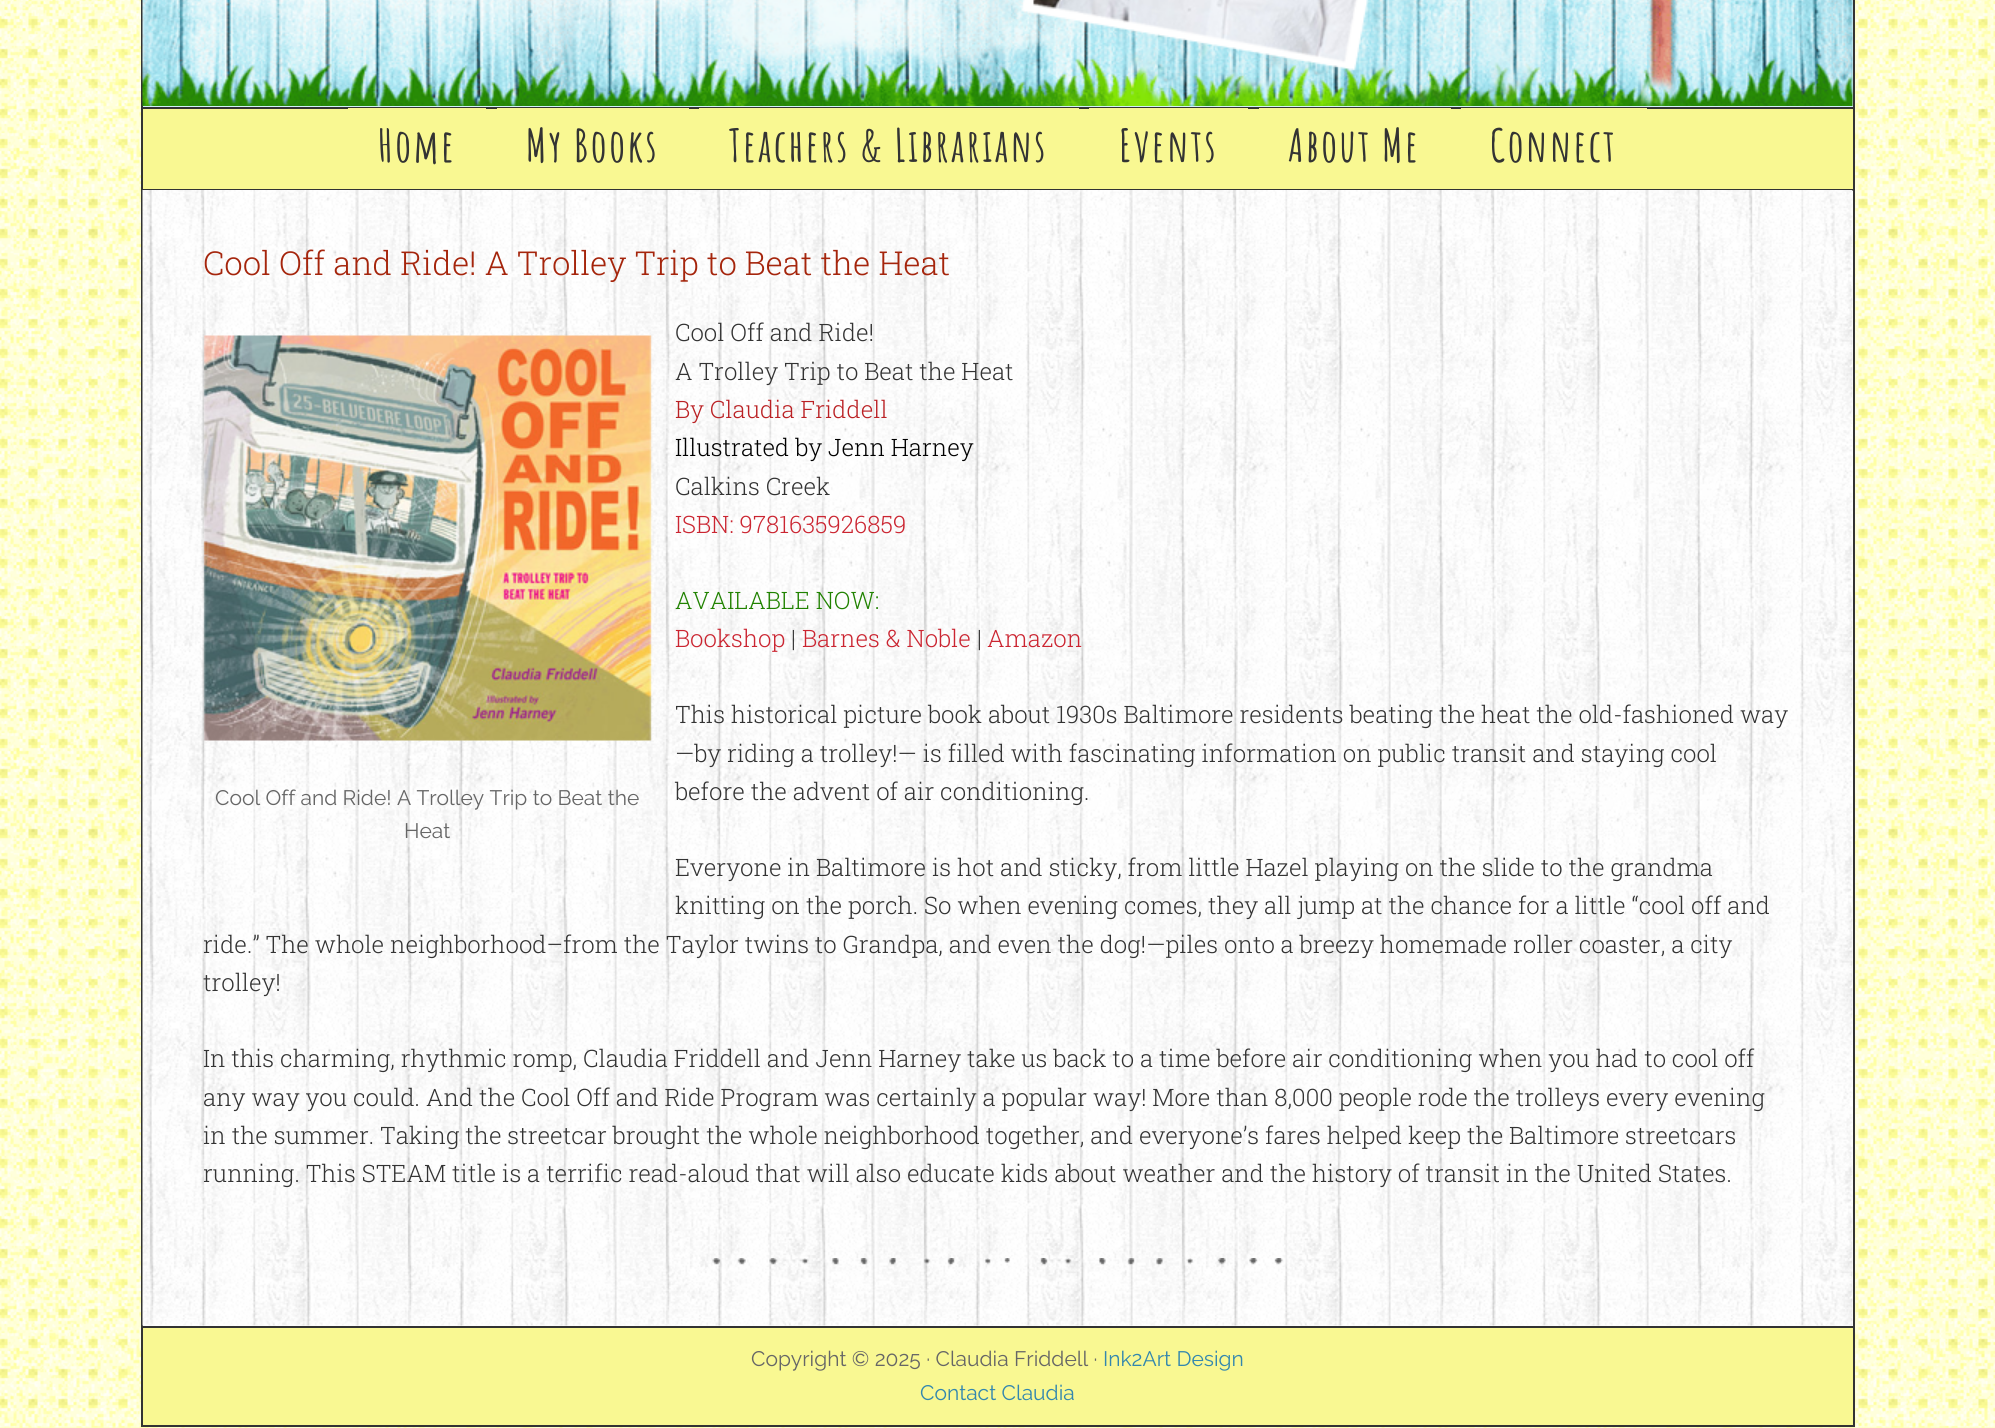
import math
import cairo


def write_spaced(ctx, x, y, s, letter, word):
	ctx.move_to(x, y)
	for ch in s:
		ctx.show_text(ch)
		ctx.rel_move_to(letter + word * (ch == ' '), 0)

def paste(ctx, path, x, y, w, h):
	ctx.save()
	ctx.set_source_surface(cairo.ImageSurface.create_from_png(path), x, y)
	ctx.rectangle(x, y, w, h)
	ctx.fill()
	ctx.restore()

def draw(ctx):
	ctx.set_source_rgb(1, 1, 0.714)
	ctx.paint()
	paste(ctx, 'media/1.png', 0, 0, 1995, 1428)
	ctx.set_source_rgb(1, 1, 1)
	ctx.rectangle(143, 191, 1710, 1135)
	ctx.fill()
	ctx.set_source_rgb(0.2, 0.2, 0.2)
	ctx.rectangle(1853, 0, 2, 1427)
	ctx.rectangle(141, 0, 2, 1427)
	ctx.fill()
	ctx.set_source_rgb(0.824, 0.949, 0.976)
	ctx.rectangle(143, 0, 1710, 107)
	ctx.fill()
	paste(ctx, 'media/2.png', 142, 0, 1711, 106)
	ctx.set_source_rgb(0.976, 0.969, 0.573)
	ctx.rectangle(143, 109, 1710, 80)
	ctx.fill()
	ctx.set_source_rgb(0.2, 0.2, 0.2)
	ctx.rectangle(143, 107, 1710, 2)
	ctx.rectangle(143, 189, 1710, 2)
	ctx.fill()
	ctx.set_source_rgb(0.976, 0.969, 0.573)
	ctx.rectangle(348, 108, 138, 1)
	ctx.fill()
	ctx.select_font_face('Amatic SC', cairo.FONT_SLANT_NORMAL, cairo.FONT_WEIGHT_BOLD)
	ctx.set_font_size(45)
	ctx.set_source_rgb(0.2, 0.2, 0.2)
	write_spaced(ctx, 378, 162, 'Home', 2.25, 0)
	ctx.set_source_rgb(0.976, 0.969, 0.573)
	ctx.rectangle(497, 108, 192, 1)
	ctx.fill()
	ctx.set_source_rgb(0.2, 0.2, 0.2)
	write_spaced(ctx, 526, 162, 'My Books', 2.25, 0)
	ctx.set_source_rgb(0.976, 0.969, 0.573)
	ctx.rectangle(699, 108, 380, 1)
	ctx.fill()
	ctx.set_source_rgb(0.2, 0.2, 0.2)
	write_spaced(ctx, 729, 162, 'Teachers & Librarians', 2.25, 0)
	ctx.set_source_rgb(0.976, 0.969, 0.573)
	ctx.rectangle(1089, 108, 159, 1)
	ctx.fill()
	ctx.set_source_rgb(0.2, 0.2, 0.2)
	write_spaced(ctx, 1119, 162, 'Events', 2.25, 0)
	ctx.set_source_rgb(0.976, 0.969, 0.573)
	ctx.rectangle(1259, 108, 192, 1)
	ctx.fill()
	ctx.set_source_rgb(0.2, 0.2, 0.2)
	write_spaced(ctx, 1288, 162, 'About Me', 2.25, 0)
	ctx.set_source_rgb(0.976, 0.969, 0.573)
	ctx.rectangle(1461, 108, 186, 1)
	ctx.fill()
	ctx.set_source_rgb(0.2, 0.2, 0.2)
	write_spaced(ctx, 1490, 162, 'Connect', 2.25, 0)
	paste(ctx, 'media/3.png', 142, 190, 1711, 1136)
	ctx.select_font_face('Roboto Slab Light')
	ctx.set_font_size(33)
	ctx.set_source_rgb(0.647, 0.145, 0.047)
	ctx.move_to(203, 275)
	ctx.show_text('Cool Off and Ride! A Trolley Trip to Beat the Heat')
	ctx.set_font_size(24)
	ctx.set_source_rgb(0.2, 0.2, 0.2)
	ctx.move_to(675, 341)
	ctx.show_text('Cool Off and Ride!')
	ctx.move_to(675, 380)
	ctx.show_text('A Trolley Trip to Beat the Heat')
	ctx.set_source_rgb(0.729, 0.129, 0.141)
	ctx.move_to(675, 418)
	ctx.show_text('By Claudia Friddell')
	ctx.set_source_rgb(0, 0, 0)
	ctx.move_to(675, 456)
	ctx.show_text('Illustrated by Jenn Harney')
	ctx.set_source_rgb(0.2, 0.2, 0.2)
	ctx.move_to(675, 495)
	ctx.show_text('Calkins Creek')
	ctx.set_source_rgb(0.796, 0.145, 0.192)
	ctx.move_to(675, 533)
	ctx.show_text('ISBN: 9781635926859')
	ctx.set_source_rgb(0.125, 0.51, 0)
	ctx.move_to(675, 609)
	ctx.show_text('AVAILABLE NOW:')
	ctx.set_source_rgb(0.796, 0.145, 0.192)
	ctx.move_to(675, 647)
	ctx.show_text('Bookshop')
	ctx.set_source_rgb(0.2, 0.2, 0.2)
	ctx.move_to(791, 647)
	ctx.show_text('|')
	ctx.set_source_rgb(0.796, 0.145, 0.192)
	ctx.move_to(802, 647)
	ctx.show_text('Barnes & Noble')
	ctx.set_source_rgb(0.2, 0.2, 0.2)
	ctx.move_to(977, 647)
	ctx.show_text('|')
	ctx.set_source_rgb(0.796, 0.145, 0.192)
	ctx.move_to(987, 647)
	ctx.show_text('Amazon')
	ctx.set_source_rgb(0.2, 0.2, 0.2)
	for x, y, s in [
		(675, 723, 'This historical picture book about 1930s Baltimore residents beating the heat the old-fashioned way'),
		(675, 762, '—by riding a trolley!— is filled with fascinating information on public transit and staying cool'),
		(675, 800, 'before the advent of air conditioning.'),
	]:
		ctx.move_to(x, y)
		ctx.show_text(s)
	paste(ctx, 'media/4.png', 203, 335, 449, 406)
	ctx.select_font_face('Raleway')
	ctx.set_font_size(21)
	ctx.set_source_rgb(0.4, 0.4, 0.4)
	ctx.move_to(215, 805)
	ctx.show_text('Cool Off and Ride! A Trolley Trip to Beat the')
	ctx.move_to(404, 838)
	ctx.show_text('Heat')
	ctx.select_font_face('Roboto Slab Light')
	ctx.set_font_size(24)
	ctx.set_source_rgb(0.2, 0.2, 0.2)
	for x, y, s in [
		(675, 876, 'Everyone in Baltimore is hot and sticky, from little Hazel playing on the slide to the grandma'),
		(675, 914, 'knitting on the porch. So when evening comes, they all jump at the chance for a little “cool off and'),
		(203, 953, 'ride.” The whole neighborhood–from the Taylor twins to Grandpa, and even the dog!—piles onto a breezy homemade roller coaster, a city'),
		(203, 991, 'trolley!'),
		(203, 1067, 'In this charming, rhythmic romp, Claudia Friddell and Jenn Harney take us back to a time before air conditioning when you had to cool off'),
		(203, 1106, 'any way you could. And the Cool Off and Ride Program was certainly a popular way! More than 8,000 people rode the trolleys every evening'),
		(203, 1144, 'in the summer. Taking the streetcar brought the whole neighborhood together, and everyone’s fares helped keep the Baltimore streetcars'),
		(203, 1182, 'running. This STEAM title is a terrific read-aloud that will also educate kids about weather and the history of transit in the United States.'),
	]:
		ctx.move_to(x, y)
		ctx.show_text(s)
	paste(ctx, 'media/5.png', 712, 1258, 571, 8)
	ctx.set_source_rgb(0.976, 0.969, 0.573)
	ctx.rectangle(143, 1328, 1710, 97)
	ctx.fill()
	ctx.set_source_rgb(0.2, 0.2, 0.2)
	ctx.rectangle(143, 1326, 1710, 2)
	ctx.rectangle(143, 1425, 1710, 2)
	ctx.fill()
	ctx.select_font_face('Raleway')
	ctx.set_font_size(21)
	ctx.set_source_rgb(0.4, 0.4, 0.4)
	ctx.move_to(751, 1366)
	ctx.show_text('Copyright © 2025 · Claudia Friddell ·')
	ctx.set_source_rgb(0.2, 0.529, 0.682)
	ctx.move_to(1103, 1366)
	ctx.show_text('Ink2Art Design')
	ctx.move_to(920, 1400)
	ctx.show_text('Contact Claudia')


surface = cairo.ImageSurface(cairo.FORMAT_RGB24, 1995, 1428)
ctx = cairo.Context(surface)
options = cairo.FontOptions()
options.set_hint_metrics(cairo.HINT_METRICS_OFF)
options.set_hint_style(cairo.HINT_STYLE_NONE)
ctx.set_font_options(options)
ctx.set_miter_limit(4)
draw(ctx)
surface.write_to_png('image.png')
